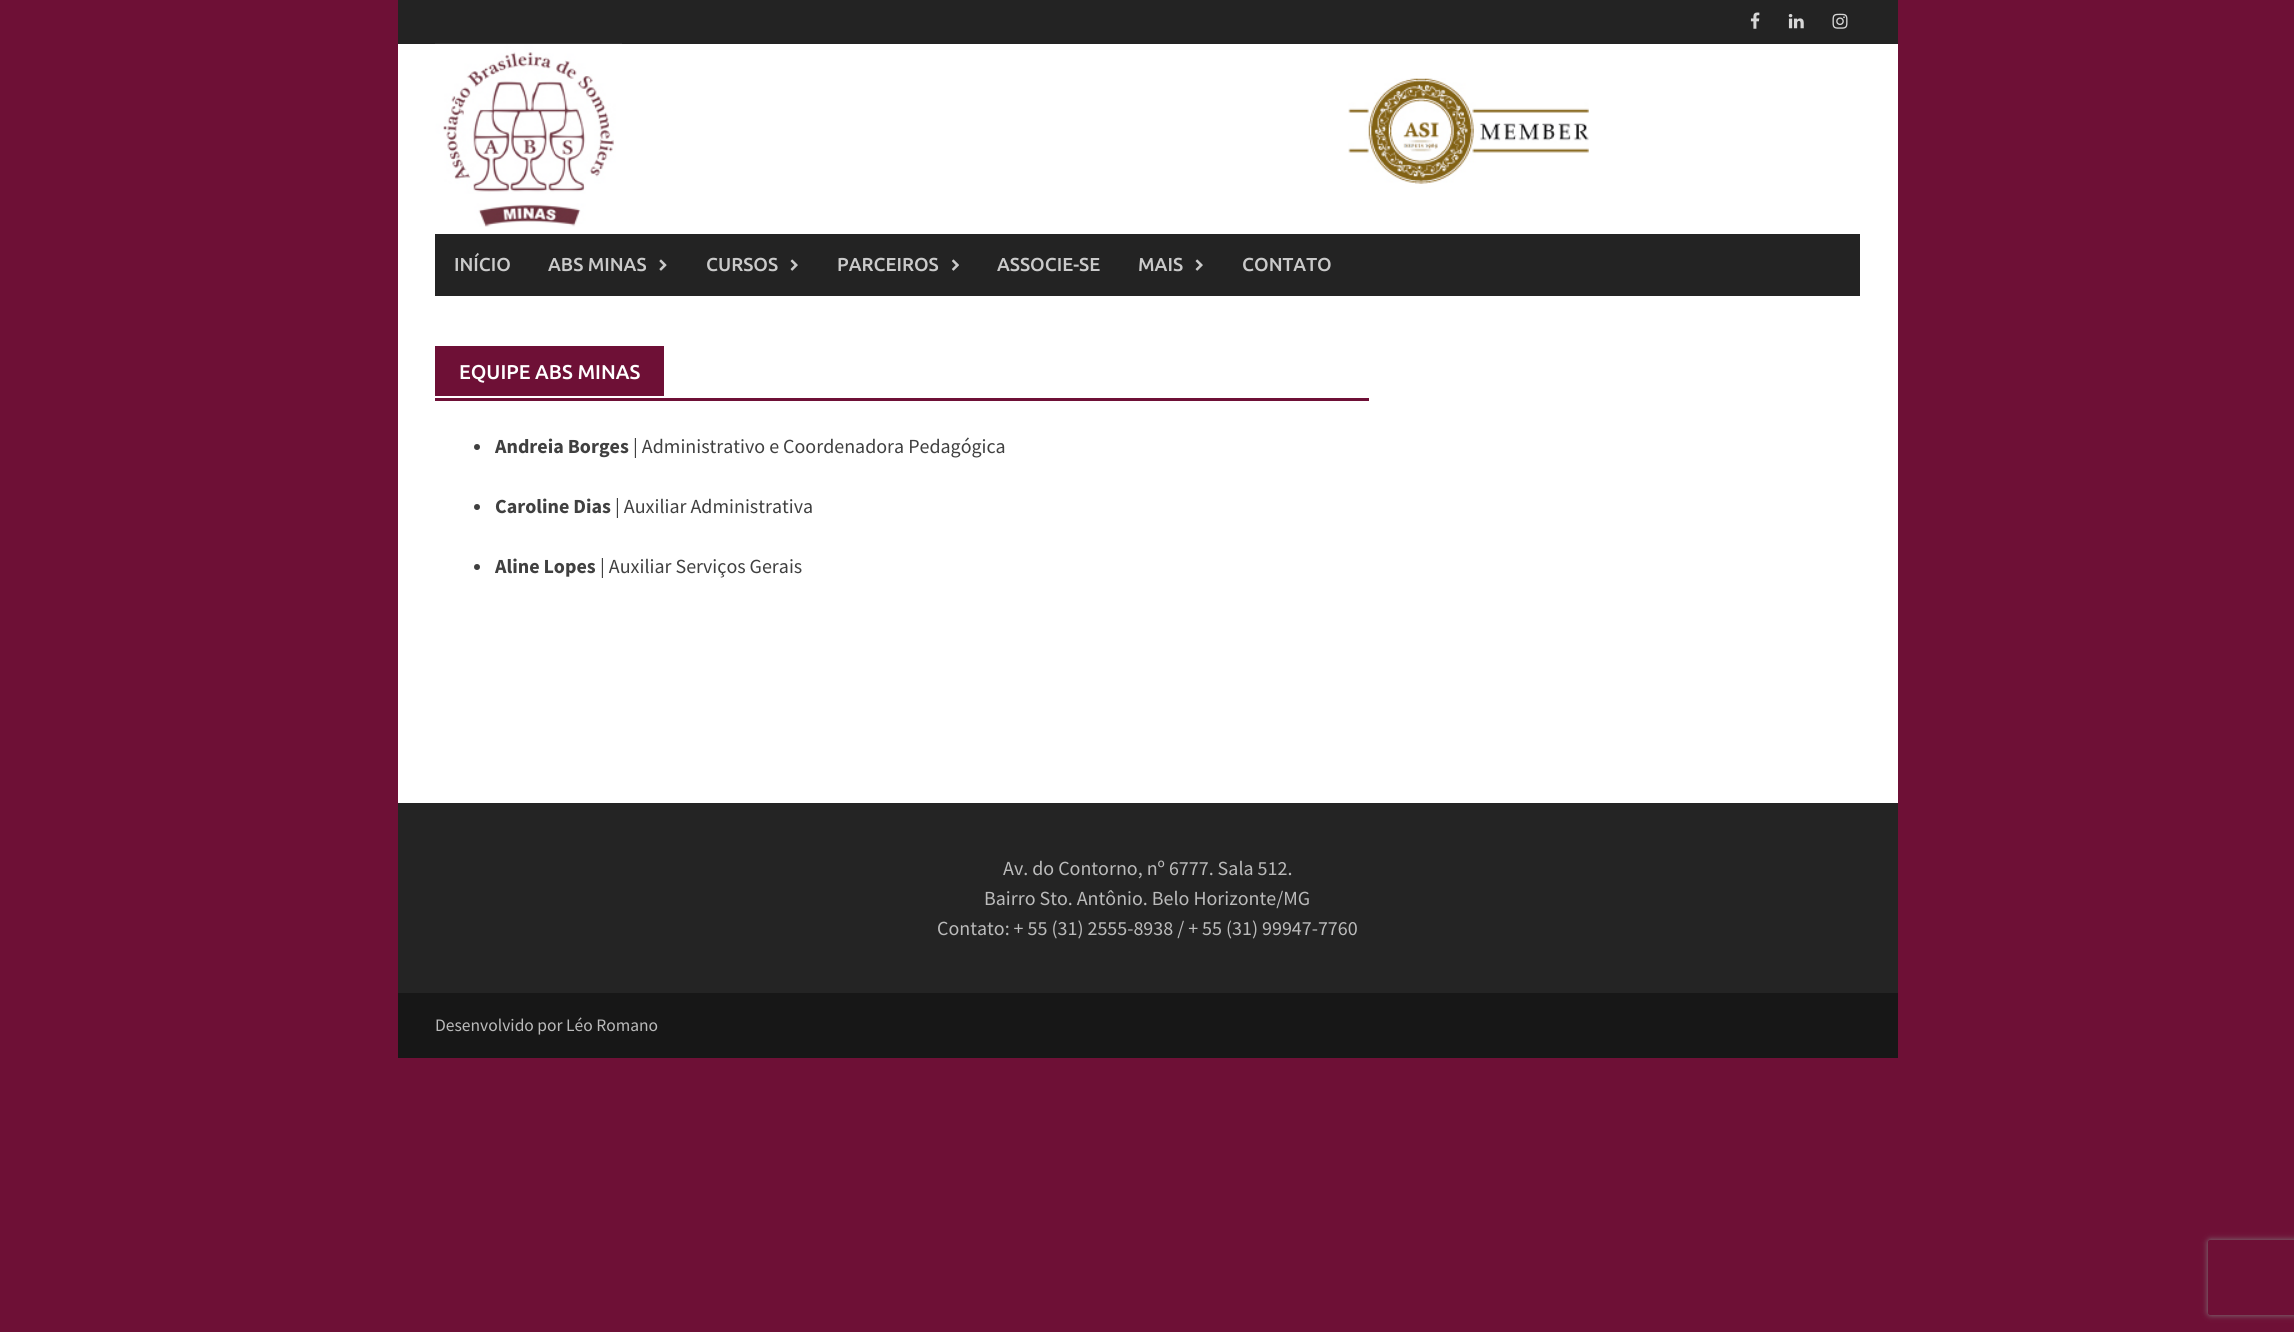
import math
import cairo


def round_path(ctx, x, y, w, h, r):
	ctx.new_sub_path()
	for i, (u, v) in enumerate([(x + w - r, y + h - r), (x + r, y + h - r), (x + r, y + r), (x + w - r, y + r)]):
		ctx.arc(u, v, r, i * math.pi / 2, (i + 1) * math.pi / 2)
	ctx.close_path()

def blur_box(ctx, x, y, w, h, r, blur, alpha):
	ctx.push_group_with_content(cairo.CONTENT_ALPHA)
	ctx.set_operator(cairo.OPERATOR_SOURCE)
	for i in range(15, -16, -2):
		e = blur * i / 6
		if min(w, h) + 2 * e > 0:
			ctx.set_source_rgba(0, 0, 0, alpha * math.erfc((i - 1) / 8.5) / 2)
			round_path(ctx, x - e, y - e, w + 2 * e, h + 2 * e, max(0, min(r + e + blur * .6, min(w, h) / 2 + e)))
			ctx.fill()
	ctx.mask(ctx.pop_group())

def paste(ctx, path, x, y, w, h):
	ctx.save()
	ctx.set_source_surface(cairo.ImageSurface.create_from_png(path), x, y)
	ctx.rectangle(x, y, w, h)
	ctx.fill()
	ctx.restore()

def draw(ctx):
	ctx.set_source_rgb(0.431, 0.063, 0.212)
	ctx.paint()
	ctx.set_source_rgb(1, 1, 1)
	ctx.rectangle(398, 44, 1500, 759)
	ctx.fill()
	ctx.set_source_rgb(0.137, 0.137, 0.137)
	ctx.rectangle(398, 0, 1500, 44)
	ctx.fill()
	paste(ctx, 'media/1.png', 1750, 12, 10, 17)
	paste(ctx, 'media/2.png', 1788, 14, 16, 15)
	paste(ctx, 'media/3.png', 1832, 13, 16, 16)
	paste(ctx, 'media/4.png', 435, 43, 187, 184)
	paste(ctx, 'media/5.png', 1348, 78, 241, 106)
	ctx.rectangle(435, 234, 1425, 62)
	ctx.fill()
	ctx.select_font_face('Ubuntu Medium')
	ctx.set_font_size(18.75)
	ctx.set_source_rgb(0.792, 0.792, 0.792)
	ctx.move_to(454, 271)
	ctx.show_text('INÍCIO')
	ctx.move_to(548, 271)
	ctx.show_text('ABS MINAS')
	paste(ctx, 'media/6.png', 659, 259, 8, 12)
	ctx.move_to(706, 271)
	ctx.show_text('CURSOS')
	paste(ctx, 'media/7.png', 790, 259, 8, 12)
	ctx.move_to(837, 271)
	ctx.show_text('PARCEIROS')
	paste(ctx, 'media/8.png', 951, 259, 8, 12)
	ctx.move_to(997, 271)
	ctx.show_text('ASSOCIE-SE')
	ctx.move_to(1138, 271)
	ctx.show_text('MAIS')
	paste(ctx, 'media/7.png', 1195, 259, 8, 12)
	ctx.move_to(1242, 271)
	ctx.show_text('CONTATO')
	ctx.set_source_rgb(0.431, 0.063, 0.212)
	ctx.rectangle(435, 398, 934, 3)
	ctx.fill()
	ctx.rectangle(435, 346, 229, 50)
	ctx.fill()
	ctx.set_font_size(20)
	ctx.set_source_rgb(1, 1, 1)
	ctx.move_to(459, 379)
	ctx.show_text('EQUIPE ABS MINAS')
	ctx.set_source_rgb(0.251, 0.251, 0.251)
	ctx.new_path()
	ctx.arc(477, 447, 3, 0, 2 * math.pi)
	ctx.fill()
	ctx.select_font_face('Source Sans Pro', cairo.FONT_SLANT_NORMAL, cairo.FONT_WEIGHT_BOLD)
	ctx.move_to(495, 453)
	ctx.show_text('Andreia Borges')
	ctx.select_font_face('Source Sans Pro')
	ctx.move_to(633, 453)
	ctx.show_text('| Administrativo e Coordenadora Pedagógica')
	ctx.new_path()
	ctx.arc(477, 507, 3, 0, 2 * math.pi)
	ctx.fill()
	ctx.select_font_face('Source Sans Pro', cairo.FONT_SLANT_NORMAL, cairo.FONT_WEIGHT_BOLD)
	ctx.move_to(495, 513)
	ctx.show_text('Caroline Dias')
	ctx.select_font_face('Source Sans Pro')
	ctx.move_to(615, 513)
	ctx.show_text('| Auxiliar Administrativa')
	ctx.new_path()
	ctx.arc(477, 567, 3, 0, 2 * math.pi)
	ctx.fill()
	ctx.select_font_face('Source Sans Pro', cairo.FONT_SLANT_NORMAL, cairo.FONT_WEIGHT_BOLD)
	ctx.move_to(495, 573)
	ctx.show_text('Aline Lopes')
	ctx.select_font_face('Source Sans Pro')
	ctx.move_to(600, 573)
	ctx.show_text('| Auxiliar Serviços Gerais')
	ctx.set_source_rgb(0.141, 0.141, 0.141)
	ctx.rectangle(398, 803, 1500, 190)
	ctx.fill()
	ctx.set_source_rgb(0.733, 0.733, 0.733)
	for x, y, s in [
		(1003, 875, 'Av. do Contorno, nº 6777. Sala 512.'),
		(984, 905, 'Bairro Sto. Antônio. Belo Horizonte/MG'),
		(937, 935, 'Contato: + 55 (31) 2555-8938 / + 55 (31) 99947-7760'),
	]:
		ctx.move_to(x, y)
		ctx.show_text(s)
	ctx.set_source_rgb(0.09, 0.09, 0.09)
	ctx.rectangle(398, 993, 1500, 65)
	ctx.fill()
	ctx.set_font_size(17.5)
	ctx.set_source_rgb(0.733, 0.733, 0.733)
	ctx.move_to(435, 1031)
	ctx.show_text('Desenvolvido por Léo Romano')
	ctx.save()
	ctx.set_fill_rule(cairo.FILL_RULE_EVEN_ODD)
	ctx.new_path()
	ctx.move_to(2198, 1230)
	ctx.line_to(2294, 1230)
	ctx.line_to(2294, 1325)
	ctx.line_to(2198, 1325)
	ctx.close_path()
	ctx.move_to(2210.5, 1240)
	ctx.line_to(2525.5, 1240)
	ctx.curve_to(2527, 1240, 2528, 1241, 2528, 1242.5)
	ctx.line_to(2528, 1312.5)
	ctx.curve_to(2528, 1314, 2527, 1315, 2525.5, 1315)
	ctx.line_to(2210.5, 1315)
	ctx.curve_to(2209, 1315, 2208, 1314, 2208, 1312.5)
	ctx.line_to(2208, 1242.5)
	ctx.curve_to(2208, 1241, 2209, 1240, 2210.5, 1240)
	ctx.close_path()
	ctx.clip()
	ctx.set_source_rgb(0.502, 0.502, 0.502)
	blur_box(ctx, 2208, 1240, 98, 75, 2.5, 3, 1)
	ctx.restore()


surface = cairo.ImageSurface(cairo.FORMAT_RGB24, 2294, 1332)
ctx = cairo.Context(surface)
options = cairo.FontOptions()
options.set_hint_metrics(cairo.HINT_METRICS_OFF)
options.set_hint_style(cairo.HINT_STYLE_NONE)
ctx.set_font_options(options)
ctx.set_miter_limit(4)
draw(ctx)
surface.write_to_png('image.png')
